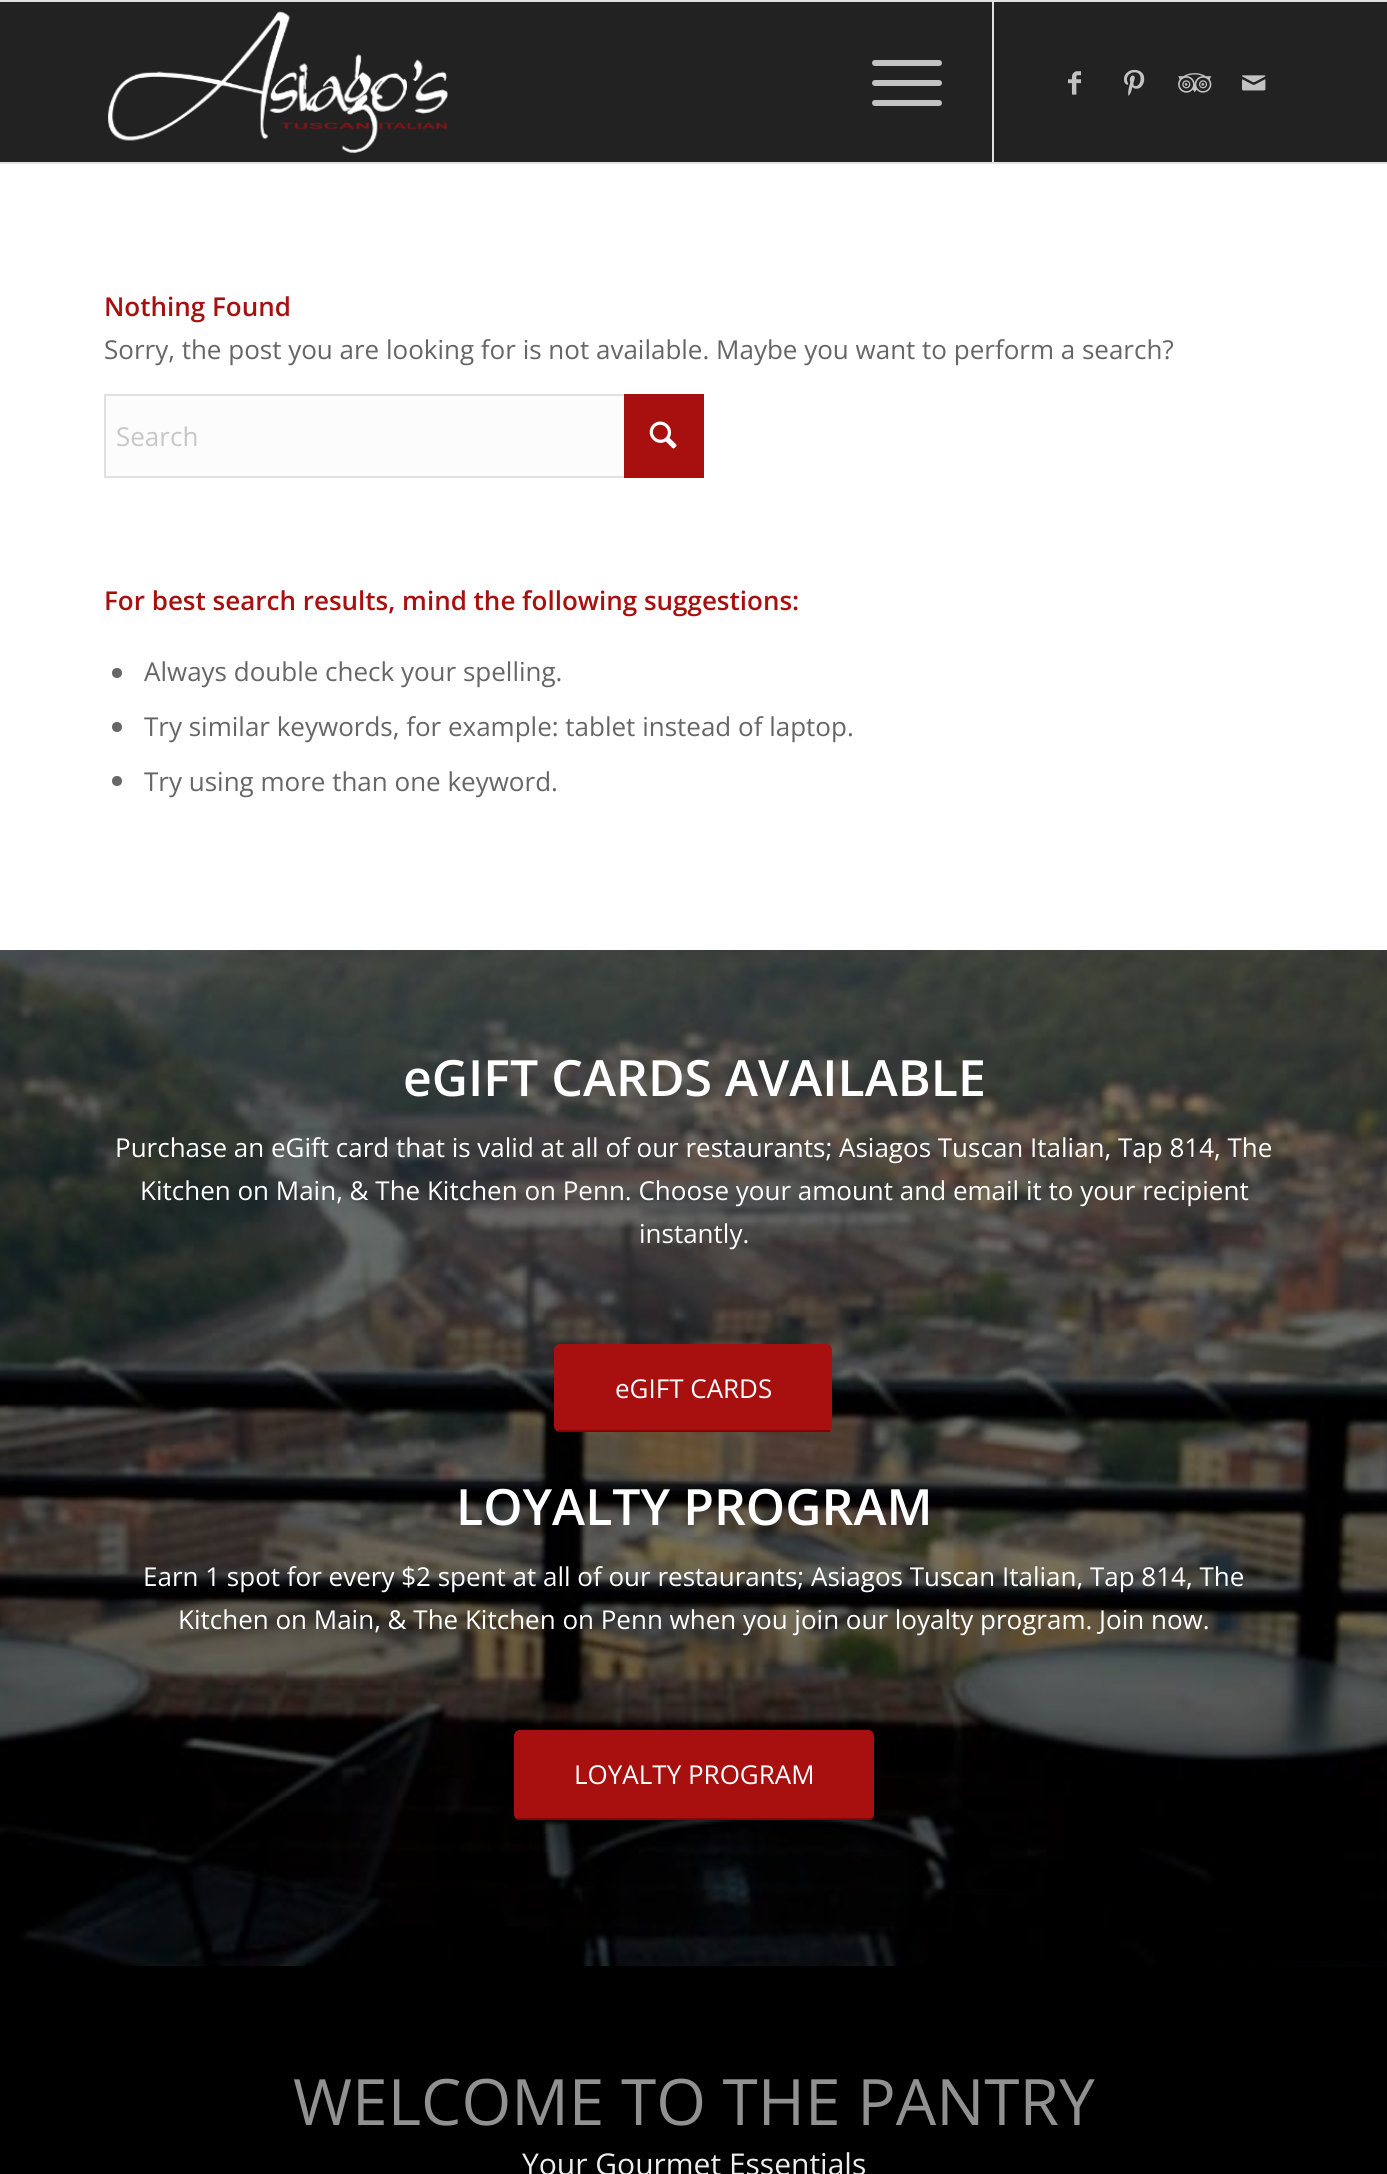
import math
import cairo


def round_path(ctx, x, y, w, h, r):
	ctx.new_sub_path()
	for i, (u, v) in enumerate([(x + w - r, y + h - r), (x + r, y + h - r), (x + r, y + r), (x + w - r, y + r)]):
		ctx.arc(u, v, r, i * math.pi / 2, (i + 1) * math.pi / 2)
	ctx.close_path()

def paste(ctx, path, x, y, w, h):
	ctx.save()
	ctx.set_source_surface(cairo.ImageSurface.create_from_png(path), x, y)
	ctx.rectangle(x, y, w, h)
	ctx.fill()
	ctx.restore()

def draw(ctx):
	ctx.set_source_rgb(0, 0, 0)
	ctx.paint()
	ctx.set_source_rgb(0.882, 0.882, 0.882)
	ctx.rectangle(0, 0, 1387, 2)
	ctx.rectangle(0, 162, 1387, 2)
	ctx.fill()
	ctx.set_source_rgb(0.133, 0.133, 0.133)
	ctx.rectangle(0, 2, 1387, 160)
	ctx.fill()
	paste(ctx, 'media/1.png', 108, 11, 340, 142)
	ctx.set_source_rgb(0.882, 0.882, 0.882)
	ctx.rectangle(992, 2, 2, 160)
	ctx.fill()
	ctx.set_source_rgb(0.761, 0.761, 0.761)
	round_path(ctx, 872, 80, 70, 6, 3)
	ctx.fill()
	round_path(ctx, 872, 60, 70, 6, 3)
	ctx.fill()
	round_path(ctx, 872, 100, 70, 6, 3)
	ctx.fill()
	paste(ctx, 'media/2.png', 1068, 71, 13, 24)
	paste(ctx, 'media/3.png', 1124, 69, 21, 27)
	paste(ctx, 'media/4.png', 1178, 73, 34, 20)
	paste(ctx, 'media/5.png', 1242, 75, 24, 16)
	ctx.set_source_rgb(1, 1, 1)
	ctx.rectangle(0, 164, 1387, 786)
	ctx.fill()
	ctx.select_font_face('Open Sans SemiBold')
	ctx.set_font_size(26)
	ctx.set_source_rgb(0.659, 0.063, 0.063)
	ctx.move_to(104, 316)
	ctx.show_text('Nothing Found')
	ctx.select_font_face('Open Sans')
	ctx.set_source_rgb(0.4, 0.4, 0.4)
	ctx.move_to(104, 359)
	ctx.show_text('Sorry, the post you are looking for is not available. Maybe you want to perform a search?')
	ctx.set_source_rgb(0.988, 0.988, 0.988)
	ctx.rectangle(106, 396, 518, 80)
	ctx.fill()
	ctx.rectangle(105, 395, 598, 82)
	ctx.set_source_rgb(0.882, 0.882, 0.882)
	ctx.stroke()
	ctx.set_source_rgb(0.659, 0.063, 0.063)
	ctx.rectangle(624, 394, 80, 84)
	ctx.fill()
	ctx.set_source_rgb(0.78, 0.78, 0.78)
	ctx.move_to(116, 446)
	ctx.show_text('Search')
	paste(ctx, 'media/6.png', 649, 421, 28, 28)
	ctx.select_font_face('Open Sans SemiBold')
	ctx.set_source_rgb(0.659, 0.063, 0.063)
	ctx.move_to(104, 610)
	ctx.show_text('For best search results, mind the following suggestions:')
	ctx.set_source_rgb(0.4, 0.4, 0.4)
	ctx.new_path()
	ctx.arc(117, 673, 5, 0, 2 * math.pi)
	ctx.fill()
	ctx.select_font_face('Open Sans')
	ctx.move_to(144, 681)
	ctx.show_text('Always double check your spelling.')
	ctx.new_path()
	ctx.arc(117, 727, 5, 0, 2 * math.pi)
	ctx.fill()
	ctx.move_to(144, 736)
	ctx.show_text('Try similar keywords, for example: tablet instead of laptop.')
	ctx.new_path()
	ctx.arc(117, 781, 5, 0, 2 * math.pi)
	ctx.fill()
	ctx.move_to(144, 791)
	ctx.show_text('Try using more than one keyword.')
	paste(ctx, 'media/7.png', 0, 950, 1387, 1016)
	ctx.select_font_face('Open Sans SemiBold')
	ctx.set_font_size(50)
	ctx.set_source_rgb(1, 1, 1)
	ctx.move_to(403, 1096)
	ctx.show_text('eGIFT CARDS AVAILABLE')
	ctx.select_font_face('Open Sans')
	ctx.set_font_size(26)
	for x, y, s in [
		(115, 1157, 'Purchase an eGift card that is valid at all of our restaurants; Asiagos Tuscan Italian, Tap 814, The'),
		(140, 1200, 'Kitchen on Main, & The Kitchen on Penn. Choose your amount and email it to your recipient'),
		(639, 1243, 'instantly.'),
	]:
		ctx.move_to(x, y)
		ctx.show_text(s)
	ctx.set_source_rgb(0.659, 0.063, 0.063)
	round_path(ctx, 554, 1344, 278, 88, 6)
	ctx.fill()
	ctx.set_source_rgb(0.525, 0, 0)
	ctx.rectangle(558, 1430, 272, 2)
	ctx.fill()
	ctx.set_source_rgb(1, 1, 1)
	ctx.move_to(615, 1398)
	ctx.show_text('eGIFT CARDS')
	ctx.select_font_face('Open Sans SemiBold')
	ctx.set_font_size(50)
	ctx.move_to(456, 1525)
	ctx.show_text('LOYALTY PROGRAM')
	ctx.select_font_face('Open Sans')
	ctx.set_font_size(26)
	ctx.move_to(143, 1586)
	ctx.show_text('Earn 1 spot for every $2 spent at all of our restaurants; Asiagos Tuscan Italian, Tap 814, The')
	ctx.move_to(178, 1629)
	ctx.show_text('Kitchen on Main, & The Kitchen on Penn when you join our loyalty program. Join now.')
	ctx.set_source_rgb(0.659, 0.063, 0.063)
	round_path(ctx, 514, 1730, 360, 90, 6)
	ctx.fill()
	ctx.set_source_rgb(0.525, 0, 0)
	ctx.rectangle(518, 1818, 354, 2)
	ctx.fill()
	ctx.set_source_rgb(1, 1, 1)
	ctx.move_to(574, 1784)
	ctx.show_text('LOYALTY PROGRAM')
	ctx.set_font_size(64)
	ctx.set_source_rgb(0.569, 0.569, 0.569)
	ctx.move_to(293, 2125)
	ctx.show_text('WELCOME TO THE PANTRY')
	ctx.set_font_size(30)
	ctx.set_source_rgb(0.933, 0.933, 0.933)
	ctx.move_to(522, 2175)
	ctx.show_text('Your Gourmet Essentials')


surface = cairo.ImageSurface(cairo.FORMAT_RGB24, 1387, 2174)
ctx = cairo.Context(surface)
options = cairo.FontOptions()
options.set_hint_metrics(cairo.HINT_METRICS_OFF)
options.set_hint_style(cairo.HINT_STYLE_NONE)
ctx.set_font_options(options)
ctx.set_miter_limit(4)
draw(ctx)
surface.write_to_png('image.png')
